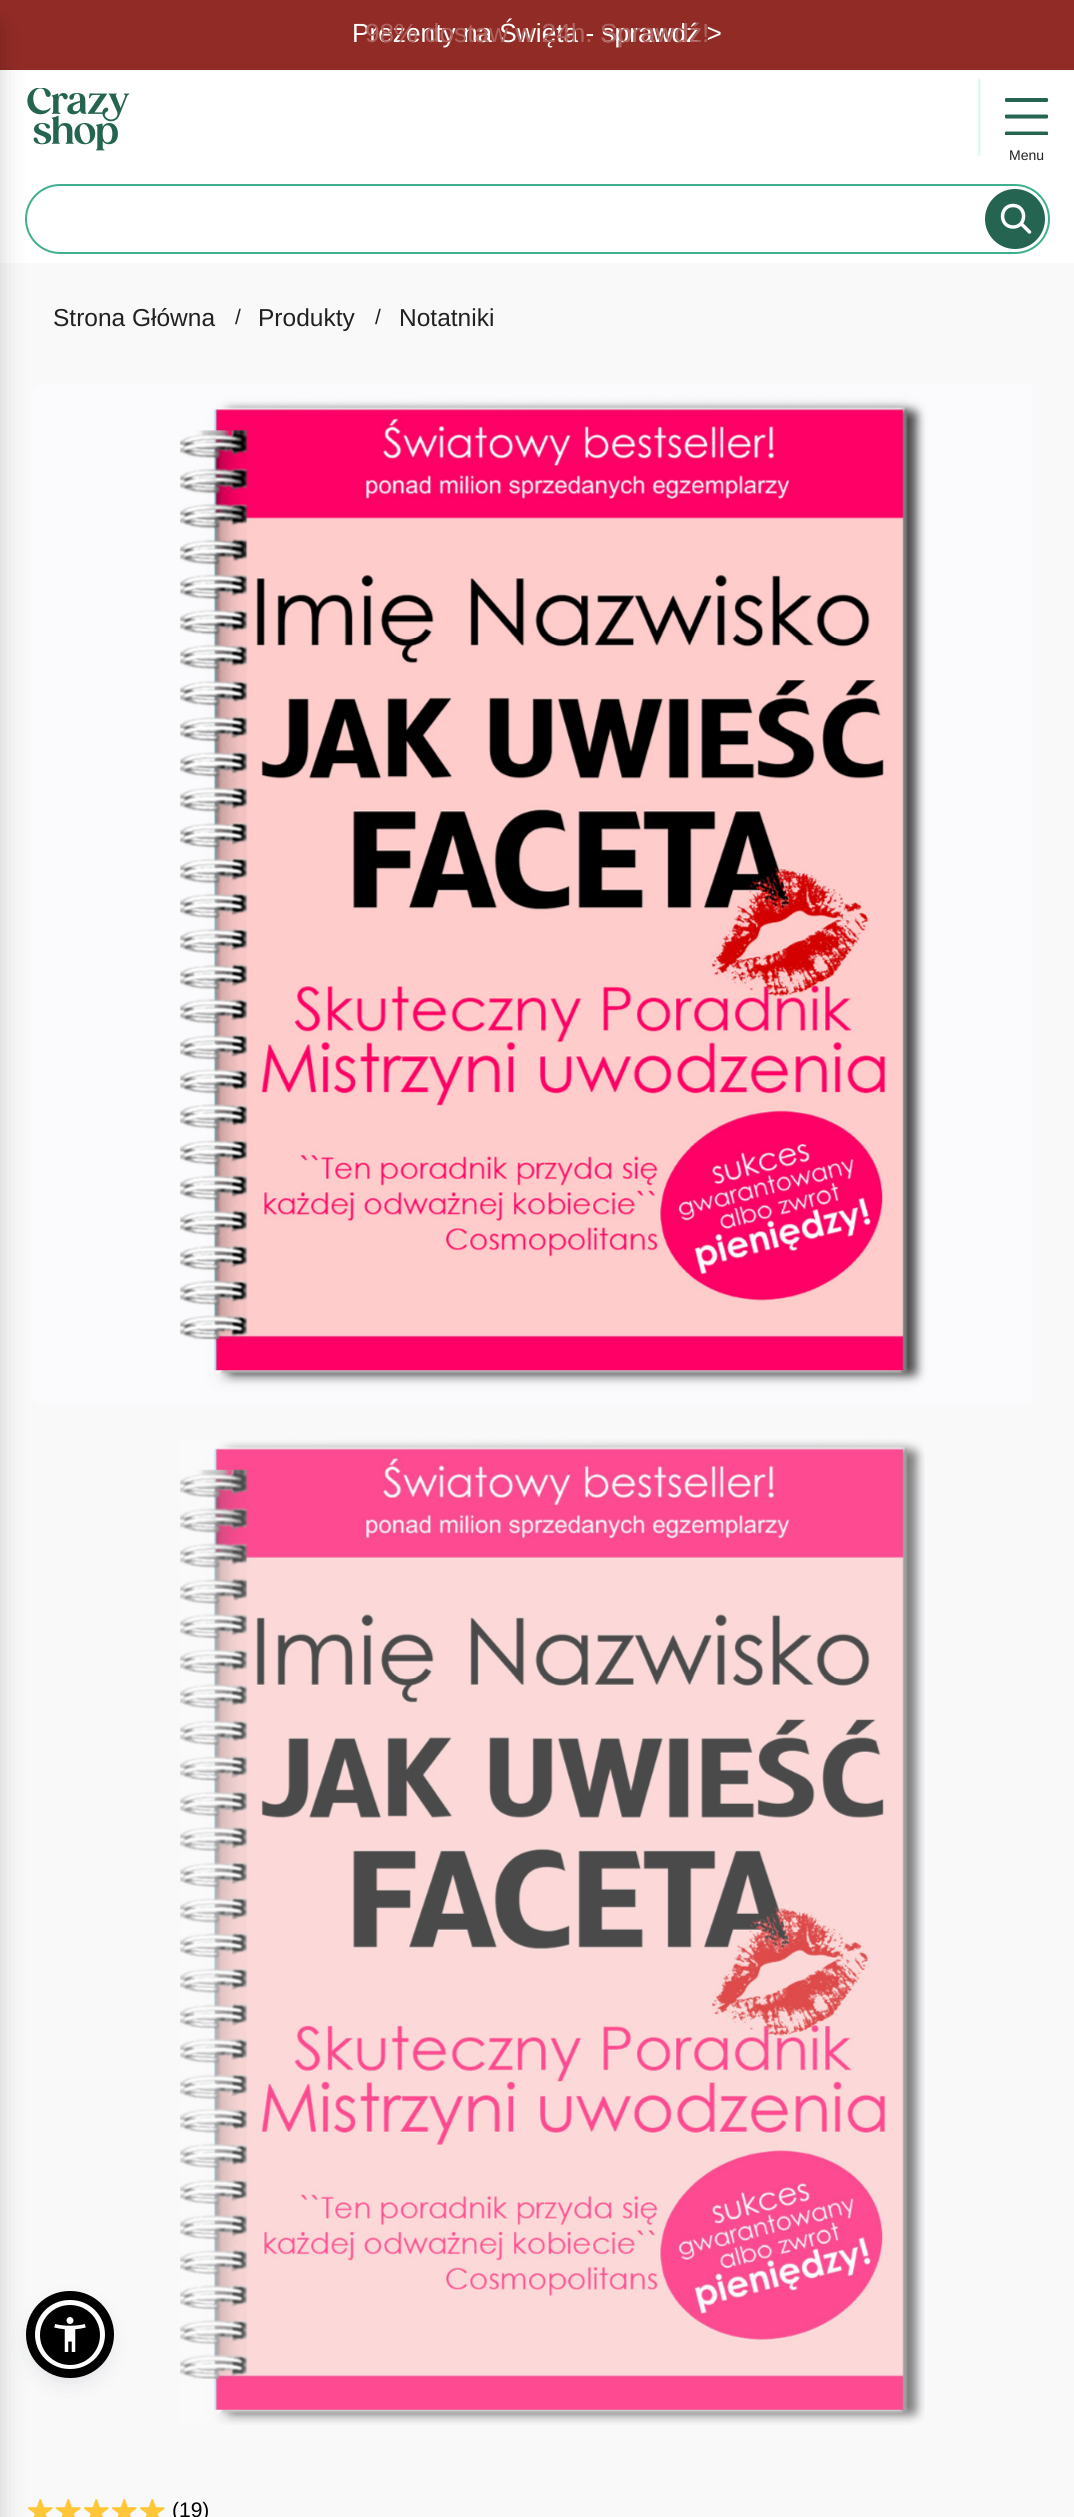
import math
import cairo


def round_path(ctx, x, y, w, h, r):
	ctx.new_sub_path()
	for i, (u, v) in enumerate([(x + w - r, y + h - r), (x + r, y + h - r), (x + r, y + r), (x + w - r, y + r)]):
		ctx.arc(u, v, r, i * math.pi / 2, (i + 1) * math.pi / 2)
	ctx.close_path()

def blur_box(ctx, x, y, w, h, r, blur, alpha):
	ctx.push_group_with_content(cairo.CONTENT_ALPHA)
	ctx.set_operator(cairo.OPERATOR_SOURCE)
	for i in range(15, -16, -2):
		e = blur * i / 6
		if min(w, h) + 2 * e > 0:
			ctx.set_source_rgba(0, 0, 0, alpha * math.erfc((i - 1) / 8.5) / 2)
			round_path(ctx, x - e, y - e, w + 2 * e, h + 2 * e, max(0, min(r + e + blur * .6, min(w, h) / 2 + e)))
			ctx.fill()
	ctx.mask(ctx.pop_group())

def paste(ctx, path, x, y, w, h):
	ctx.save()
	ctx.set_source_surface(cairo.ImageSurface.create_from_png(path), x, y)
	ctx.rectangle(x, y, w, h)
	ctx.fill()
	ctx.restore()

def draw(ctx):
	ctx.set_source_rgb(0.976, 0.976, 0.976)
	ctx.paint()
	ctx.set_source_rgb(0.569, 0.169, 0.149)
	ctx.rectangle(0, 0, 1074, 70)
	ctx.fill()
	ctx.select_font_face('Liberation Sans')
	ctx.set_font_size(26.25)
	ctx.set_source_rgb(1, 1, 1)
	ctx.move_to(352, 42)
	ctx.show_text('Prezenty na Święta - sprawdź >')
	ctx.set_source_rgb(0.682, 0.388, 0.373)
	ctx.move_to(365, 42)
	ctx.show_text('98% dostaw w 24h. Sprawdź!')
	ctx.set_source_rgb(1, 1, 1)
	ctx.rectangle(0, 70, 1074, 193)
	ctx.fill()
	paste(ctx, 'media/1.png', 27, 88, 103, 63)
	round_path(ctx, 26, 185, 1023, 68, 34)
	ctx.set_source_rgb(0.243, 0.69, 0.557)
	ctx.stroke()
	ctx.set_source_rgb(0.141, 0.392, 0.314)
	ctx.arc(1015, 219, 30, 0, 2 * math.pi)
	ctx.fill()
	ctx.new_path()
	ctx.move_to(1022, 224.5)
	ctx.line_to(1029.5, 232)
	ctx.set_source_rgb(1, 1, 1)
	ctx.set_line_width(3.5)
	ctx.set_line_cap(cairo.LINE_CAP_ROUND)
	ctx.stroke()
	ctx.new_path()
	ctx.move_to(1013, 205.5)
	ctx.curve_to(999, 205.5, 999, 227.5, 1013.5, 227)
	ctx.curve_to(1027, 226.5, 1027, 205.5, 1013, 205.5)
	ctx.close_path()
	ctx.set_line_cap(cairo.LINE_CAP_BUTT)
	ctx.stroke()
	paste(ctx, 'media/2.png', 978, 78, 3, 79)
	paste(ctx, 'media/3.png', 32, 384, 1000, 1021)
	paste(ctx, 'media/5.png', 28, 2499, 25, 18)
	ctx.set_source_rgb(0.365, 0.392, 0.58)
	blur_box(ctx, 35, 2303, 70, 70, 35, 3.5, 0.2)
	ctx.set_source_rgb(0.145, 0.173, 0.38)
	blur_box(ctx, 35, 2308, 70, 70, 35, 13, 0.15)
	ctx.set_source_rgb(0, 0, 0)
	ctx.arc(70, 2335, 32.5, 0, 2 * math.pi)
	ctx.fill_preserve()
	ctx.set_source_rgb(1, 1, 1)
	ctx.set_line_width(5)
	ctx.stroke()
	round_path(ctx, 30.5, 2295.5, 79, 78, 39)
	ctx.set_source_rgb(0, 0, 0)
	ctx.set_line_width(9)
	ctx.stroke()
	ctx.set_source_rgb(0, 0, 0)
	blur_box(ctx, -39, 26, 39, 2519, 0, 13, 0.18)
	ctx.save()
	ctx.rectangle(1005, 98, 43, 37)
	ctx.clip()
	ctx.new_path()
	ctx.move_to(1006.5, 100)
	ctx.line_to(1046.5, 100)
	ctx.move_to(1006.5, 116.5)
	ctx.line_to(1046.5, 116.5)
	ctx.move_to(1006.5, 133.5)
	ctx.line_to(1046.5, 133.5)
	ctx.set_source_rgb(0.141, 0.392, 0.314)
	ctx.set_line_width(4)
	ctx.set_line_cap(cairo.LINE_CAP_ROUND)
	ctx.stroke()
	ctx.restore()
	ctx.set_font_size(14)
	ctx.set_source_rgb(0.129, 0.129, 0.129)
	ctx.move_to(1009, 160)
	ctx.show_text('Menu')
	ctx.set_font_size(24.5)
	ctx.move_to(53, 326)
	ctx.show_text('Strona Główna')
	ctx.set_font_size(21)
	ctx.move_to(235, 324)
	ctx.show_text('/')
	ctx.set_font_size(24.5)
	ctx.move_to(258, 326)
	ctx.show_text('Produkty')
	ctx.set_font_size(21)
	ctx.move_to(375, 324)
	ctx.show_text('/')
	ctx.set_font_size(24.5)
	ctx.move_to(399, 326)
	ctx.show_text('Notatniki')
	paste(ctx, 'media/4.png', 180, 1439, 745, 986)
	paste(ctx, 'media/5.png', 56, 2499, 25, 18)
	paste(ctx, 'media/5.png', 84, 2499, 25, 18)
	paste(ctx, 'media/5.png', 112, 2499, 25, 18)
	paste(ctx, 'media/5.png', 140, 2499, 25, 18)
	ctx.set_font_size(21)
	ctx.set_source_rgb(0, 0, 0)
	ctx.move_to(172, 2517)
	ctx.show_text('(19)')
	paste(ctx, 'media/6.png', 54, 2317, 32, 35)


surface = cairo.ImageSurface(cairo.FORMAT_RGB24, 1074, 2517)
ctx = cairo.Context(surface)
options = cairo.FontOptions()
options.set_hint_metrics(cairo.HINT_METRICS_OFF)
options.set_hint_style(cairo.HINT_STYLE_NONE)
ctx.set_font_options(options)
ctx.set_miter_limit(4)
draw(ctx)
surface.write_to_png('image.png')
